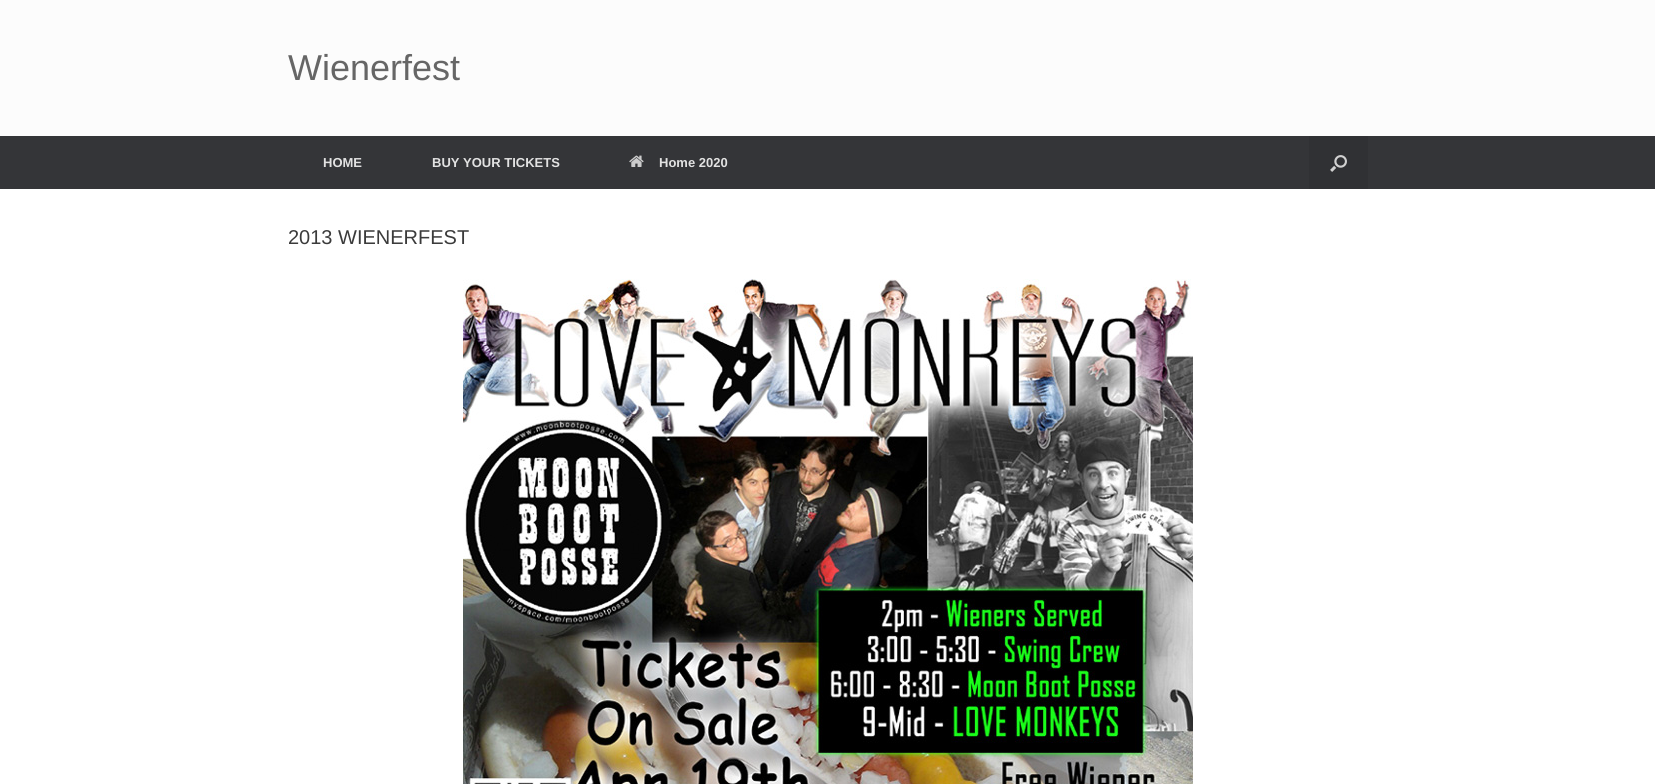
import math
import cairo


def paste(ctx, path, x, y, w, h):
	ctx.save()
	ctx.set_source_surface(cairo.ImageSurface.create_from_png(path), x, y)
	ctx.rectangle(x, y, w, h)
	ctx.fill()
	ctx.restore()

def draw(ctx):
	ctx.set_source_rgb(1, 1, 1)
	ctx.paint()
	ctx.set_source_rgb(0.988, 0.988, 0.988)
	ctx.rectangle(0, 0, 1655, 136)
	ctx.fill()
	ctx.select_font_face('Liberation Sans')
	ctx.set_font_size(36)
	ctx.set_source_rgb(0.4, 0.4, 0.4)
	ctx.move_to(288, 80)
	ctx.show_text('Wienerfest')
	ctx.set_source_rgb(0.204, 0.208, 0.22)
	ctx.rectangle(0, 136, 1655, 53)
	ctx.fill()
	ctx.select_font_face('Liberation Sans', cairo.FONT_SLANT_NORMAL, cairo.FONT_WEIGHT_BOLD)
	ctx.set_font_size(13)
	ctx.set_source_rgb(0.886, 0.886, 0.886)
	ctx.move_to(323, 167)
	ctx.show_text('HOME')
	ctx.move_to(432, 167)
	ctx.show_text('BUY YOUR TICKETS')
	paste(ctx, 'media/1.png', 629, 155, 15, 12)
	ctx.move_to(659, 167)
	ctx.show_text('Home 2020')
	ctx.set_source_rgb(0.188, 0.192, 0.204)
	ctx.rectangle(1309, 136, 59, 53)
	ctx.fill()
	paste(ctx, 'media/2.png', 1330, 155, 17, 17)
	ctx.select_font_face('Liberation Sans')
	ctx.set_font_size(20)
	ctx.set_source_rgb(0.231, 0.231, 0.231)
	ctx.move_to(288, 244)
	ctx.show_text('2013 WIENERFEST')
	paste(ctx, 'media/3.png', 463, 279, 730, 505)


surface = cairo.ImageSurface(cairo.FORMAT_RGB24, 1655, 784)
ctx = cairo.Context(surface)
options = cairo.FontOptions()
options.set_hint_metrics(cairo.HINT_METRICS_OFF)
options.set_hint_style(cairo.HINT_STYLE_NONE)
ctx.set_font_options(options)
ctx.set_miter_limit(4)
draw(ctx)
surface.write_to_png('image.png')
